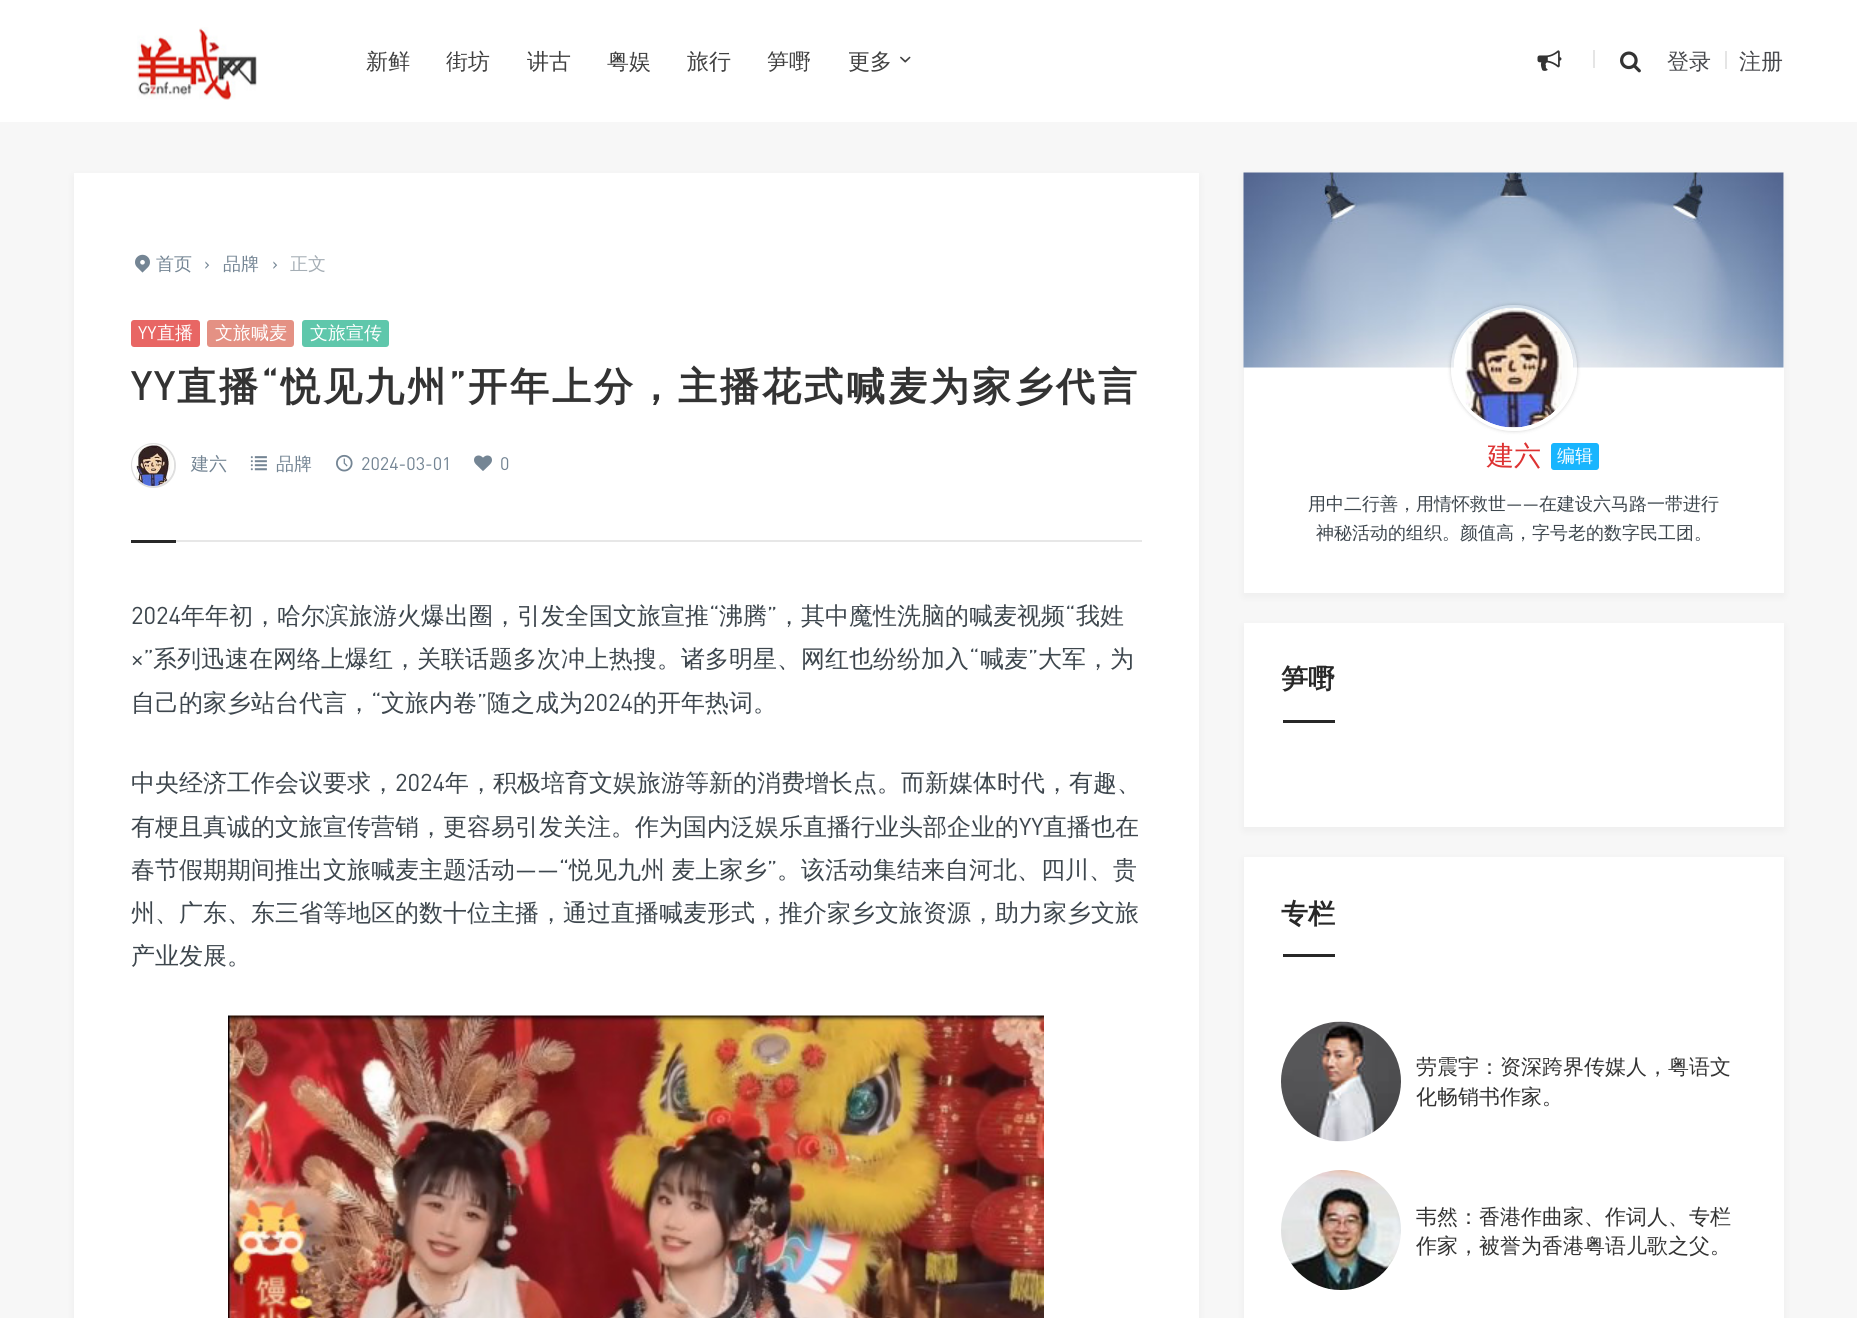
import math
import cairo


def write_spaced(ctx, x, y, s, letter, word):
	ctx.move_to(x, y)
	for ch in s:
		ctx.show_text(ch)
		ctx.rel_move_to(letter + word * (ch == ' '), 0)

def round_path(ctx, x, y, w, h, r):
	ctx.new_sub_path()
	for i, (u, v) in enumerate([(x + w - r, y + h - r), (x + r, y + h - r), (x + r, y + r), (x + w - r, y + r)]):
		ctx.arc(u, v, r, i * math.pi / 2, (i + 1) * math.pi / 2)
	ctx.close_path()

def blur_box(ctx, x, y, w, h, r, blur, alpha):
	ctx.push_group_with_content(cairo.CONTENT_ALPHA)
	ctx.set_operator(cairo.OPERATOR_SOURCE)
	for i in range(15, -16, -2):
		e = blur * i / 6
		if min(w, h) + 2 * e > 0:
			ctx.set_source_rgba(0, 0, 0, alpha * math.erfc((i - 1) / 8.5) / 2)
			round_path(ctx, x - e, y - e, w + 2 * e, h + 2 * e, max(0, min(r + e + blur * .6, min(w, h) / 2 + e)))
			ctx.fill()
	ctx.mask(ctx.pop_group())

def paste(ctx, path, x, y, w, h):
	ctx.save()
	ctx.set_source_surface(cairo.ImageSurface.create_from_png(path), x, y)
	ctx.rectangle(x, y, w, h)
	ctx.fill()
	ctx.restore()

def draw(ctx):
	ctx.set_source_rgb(0.965, 0.965, 0.965)
	ctx.paint()
	ctx.set_source_rgb(1, 1, 1)
	ctx.rectangle(0, 0, 1857, 122)
	ctx.fill()
	paste(ctx, 'media/1.png', 137, 27, 120, 73)
	ctx.select_font_face('WenQuanYi Zen Hei Medium')
	ctx.set_font_size(22)
	ctx.set_source_rgb(0.251, 0.251, 0.251)
	for x, y, s in [
		(366, 69, '新鲜'),
		(446, 69, '街坊'),
		(527, 69, '讲古'),
		(607, 69, '粤娱'),
		(687, 69, '旅行'),
		(767, 69, '笋嘢'),
		(848, 69, '更多'),
	]:
		ctx.move_to(x, y)
		ctx.show_text(s)
	paste(ctx, 'media/2.png', 900, 56, 11, 7)
	paste(ctx, 'media/3.png', 1537, 50, 25, 21)
	ctx.set_source_rgb(0.898, 0.898, 0.898)
	ctx.rectangle(1593, 50, 2, 18)
	ctx.fill()
	paste(ctx, 'media/4.png', 1620, 51, 21, 22)
	ctx.set_source_rgb(0.282, 0.286, 0.302)
	ctx.move_to(1667, 69)
	ctx.show_text('登录')
	ctx.set_source_rgb(0.898, 0.898, 0.898)
	ctx.rectangle(1725, 51, 2, 18)
	ctx.fill()
	ctx.set_source_rgb(0.282, 0.286, 0.302)
	ctx.move_to(1739, 69)
	ctx.show_text('注册')
	ctx.set_source_rgb(0.573, 0.573, 0.573)
	blur_box(ctx, 74, 176, 1125, 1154, 0, 4, 0.1)
	ctx.set_source_rgb(1, 1, 1)
	ctx.rectangle(74, 173, 1125, 1145)
	ctx.fill()
	ctx.set_source_rgb(0.906, 0.906, 0.906)
	ctx.rectangle(176, 540, 966, 2)
	ctx.fill()
	paste(ctx, 'media/5.png', 135, 254, 15, 19)
	ctx.set_font_size(18)
	ctx.set_source_rgb(0.455, 0.522, 0.58)
	ctx.move_to(156, 270)
	ctx.show_text('首页')
	ctx.select_font_face('DIN')
	ctx.move_to(204, 270)
	ctx.show_text('›')
	ctx.select_font_face('WenQuanYi Zen Hei Medium')
	ctx.move_to(223, 270)
	ctx.show_text('品牌')
	ctx.select_font_face('DIN')
	ctx.move_to(272, 270)
	ctx.show_text('›')
	ctx.select_font_face('WenQuanYi Zen Hei Medium')
	ctx.set_source_rgb(0.647, 0.682, 0.71)
	ctx.move_to(290, 270)
	ctx.show_text('正文')
	ctx.set_source_rgb(0.91, 0.4, 0.392)
	round_path(ctx, 131, 320, 69, 27, 3)
	ctx.fill()
	ctx.select_font_face('DIN')
	ctx.set_source_rgb(1, 1, 1)
	ctx.move_to(138, 339)
	ctx.show_text('YY')
	ctx.select_font_face('WenQuanYi Zen Hei Medium')
	ctx.move_to(157, 339)
	ctx.show_text('直播')
	ctx.set_source_rgb(0.894, 0.569, 0.518)
	round_path(ctx, 207, 320, 87, 27, 3)
	ctx.fill()
	ctx.set_source_rgb(1, 1, 1)
	ctx.move_to(215, 339)
	ctx.show_text('文旅喊麦')
	ctx.set_source_rgb(0.373, 0.78, 0.671)
	round_path(ctx, 302, 320, 87, 27, 3)
	ctx.fill()
	ctx.set_source_rgb(1, 1, 1)
	ctx.move_to(310, 339)
	ctx.show_text('文旅宣传')
	ctx.select_font_face('DIN', cairo.FONT_SLANT_NORMAL, cairo.FONT_WEIGHT_BOLD)
	ctx.set_font_size(39)
	ctx.set_source_rgb(0.2, 0.2, 0.2)
	write_spaced(ctx, 131, 400, 'YY', 3, 0)
	ctx.select_font_face('WenQuanYi Zen Hei', cairo.FONT_SLANT_NORMAL, cairo.FONT_WEIGHT_BOLD)
	write_spaced(ctx, 177, 400, '直播', 3, 0)
	ctx.select_font_face('DIN', cairo.FONT_SLANT_NORMAL, cairo.FONT_WEIGHT_BOLD)
	write_spaced(ctx, 261, 400, '“', 3, 0)
	ctx.select_font_face('WenQuanYi Zen Hei', cairo.FONT_SLANT_NORMAL, cairo.FONT_WEIGHT_BOLD)
	write_spaced(ctx, 281, 400, '悦见九州', 3, 0)
	ctx.select_font_face('DIN', cairo.FONT_SLANT_NORMAL, cairo.FONT_WEIGHT_BOLD)
	write_spaced(ctx, 449, 400, '”', 3, 0)
	ctx.select_font_face('WenQuanYi Zen Hei', cairo.FONT_SLANT_NORMAL, cairo.FONT_WEIGHT_BOLD)
	write_spaced(ctx, 468, 400, '开年上分，主播花式喊麦为家乡代言', 3, 0)
	ctx.new_path()
	ctx.arc(153.5, 465.5, 21.5, 0, 2 * math.pi)
	ctx.set_source_rgb(0.875, 0.875, 0.875)
	ctx.stroke()
	paste(ctx, 'media/6.png', 132, 444, 42, 42)
	ctx.select_font_face('WenQuanYi Zen Hei Medium')
	ctx.set_font_size(18)
	ctx.set_source_rgb(0.455, 0.522, 0.58)
	ctx.move_to(191, 470)
	ctx.show_text('建六')
	paste(ctx, 'media/7.png', 250, 456, 17, 15)
	ctx.move_to(276, 470)
	ctx.show_text('品牌')
	paste(ctx, 'media/8.png', 336, 454, 17, 18)
	ctx.select_font_face('DIN')
	ctx.move_to(361, 470)
	ctx.show_text('2024-03-01')
	paste(ctx, 'media/9.png', 474, 455, 18, 16)
	ctx.move_to(500, 470)
	ctx.show_text('0')
	ctx.set_source_rgb(0.157, 0.157, 0.157)
	ctx.rectangle(131, 540, 45, 3)
	ctx.fill()
	ctx.set_font_size(24)
	ctx.set_source_rgb(0.239, 0.275, 0.302)
	ctx.move_to(131, 624)
	ctx.show_text('2024')
	ctx.select_font_face('WenQuanYi Zen Hei Medium')
	ctx.move_to(181, 624)
	ctx.show_text('年年初，哈尔滨旅游火爆出圈，引发全国文旅宣推')
	ctx.select_font_face('DIN')
	ctx.move_to(709, 624)
	ctx.show_text('“')
	ctx.select_font_face('WenQuanYi Zen Hei Medium')
	ctx.move_to(719, 624)
	ctx.show_text('沸腾')
	ctx.select_font_face('DIN')
	ctx.move_to(767, 624)
	ctx.show_text('”')
	ctx.select_font_face('WenQuanYi Zen Hei Medium')
	ctx.move_to(777, 624)
	ctx.show_text('，其中魔性洗脑的喊麦视频')
	ctx.select_font_face('DIN')
	ctx.move_to(1065, 624)
	ctx.show_text('“')
	ctx.select_font_face('WenQuanYi Zen Hei Medium')
	ctx.move_to(1076, 624)
	ctx.show_text('我姓')
	ctx.select_font_face('DIN')
	ctx.move_to(131, 667)
	ctx.show_text('×”')
	ctx.select_font_face('WenQuanYi Zen Hei Medium')
	ctx.move_to(153, 667)
	ctx.show_text('系列迅速在网络上爆红，关联话题多次冲上热搜。诸多明星、网红也纷纷加入')
	ctx.select_font_face('DIN')
	ctx.move_to(969, 667)
	ctx.show_text('“')
	ctx.select_font_face('WenQuanYi Zen Hei Medium')
	ctx.move_to(980, 667)
	ctx.show_text('喊麦')
	ctx.select_font_face('DIN')
	ctx.move_to(1028, 667)
	ctx.show_text('”')
	ctx.select_font_face('WenQuanYi Zen Hei Medium')
	ctx.move_to(1038, 667)
	ctx.show_text('大军，为')
	ctx.move_to(131, 711)
	ctx.show_text('自己的家乡站台代言，')
	ctx.select_font_face('DIN')
	ctx.move_to(371, 711)
	ctx.show_text('“')
	ctx.select_font_face('WenQuanYi Zen Hei Medium')
	ctx.move_to(381, 711)
	ctx.show_text('文旅内卷')
	ctx.select_font_face('DIN')
	ctx.move_to(477, 711)
	ctx.show_text('”')
	ctx.select_font_face('WenQuanYi Zen Hei Medium')
	ctx.move_to(487, 711)
	ctx.show_text('随之成为')
	ctx.select_font_face('DIN')
	ctx.move_to(583, 711)
	ctx.show_text('2024')
	ctx.select_font_face('WenQuanYi Zen Hei Medium')
	ctx.move_to(633, 711)
	ctx.show_text('的开年热词。')
	ctx.move_to(131, 791)
	ctx.show_text('中央经济工作会议要求，')
	ctx.select_font_face('DIN')
	ctx.move_to(395, 791)
	ctx.show_text('2024')
	ctx.select_font_face('WenQuanYi Zen Hei Medium')
	ctx.move_to(445, 791)
	ctx.show_text('年，积极培育文娱旅游等新的消费增长点。而新媒体时代，有趣、')
	ctx.move_to(131, 835)
	ctx.show_text('有梗且真诚的文旅宣传营销，更容易引发关注。作为国内泛娱乐直播行业头部企业的')
	ctx.select_font_face('DIN')
	ctx.move_to(1019, 835)
	ctx.show_text('YY')
	ctx.select_font_face('WenQuanYi Zen Hei Medium')
	ctx.move_to(1043, 835)
	ctx.show_text('直播也在')
	ctx.move_to(131, 878)
	ctx.show_text('春节假期期间推出文旅喊麦主题活动')
	ctx.select_font_face('DIN')
	ctx.move_to(515, 878)
	ctx.show_text('——“')
	ctx.select_font_face('WenQuanYi Zen Hei Medium')
	write_spaced(ctx, 569, 878, '悦见九州 麦上家乡', 0, -1)
	ctx.select_font_face('DIN')
	ctx.move_to(767, 878)
	ctx.show_text('”')
	ctx.select_font_face('WenQuanYi Zen Hei Medium')
	for x, y, s in [
		(777, 878, '。该活动集结来自河北、四川、贵'),
		(131, 921, '州、广东、东三省等地区的数十位主播，通过直播喊麦形式，推介家乡文旅资源，助力家乡文旅'),
		(131, 964, '产业发展。'),
	]:
		ctx.move_to(x, y)
		ctx.show_text(s)
	paste(ctx, 'media/10.png', 228, 1015, 816, 303)
	ctx.set_source_rgb(0.573, 0.573, 0.573)
	blur_box(ctx, 1244, 176, 540, 420, 0, 4, 0.1)
	ctx.set_source_rgb(1, 1, 1)
	ctx.rectangle(1244, 173, 540, 420)
	ctx.fill()
	paste(ctx, 'media/11.png', 1243, 172, 541, 196)
	ctx.save()
	ctx.set_fill_rule(cairo.FILL_RULE_EVEN_ODD)
	ctx.new_path()
	ctx.move_to(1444, 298)
	ctx.line_to(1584, 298)
	ctx.line_to(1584, 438)
	ctx.line_to(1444, 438)
	ctx.close_path()
	ctx.move_to(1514, 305)
	ctx.curve_to(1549, 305, 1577, 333, 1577, 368)
	ctx.curve_to(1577, 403, 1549, 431, 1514, 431)
	ctx.curve_to(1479, 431, 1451, 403, 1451, 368)
	ctx.curve_to(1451, 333, 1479, 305, 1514, 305)
	ctx.close_path()
	ctx.clip()
	ctx.set_source_rgb(0, 0, 0)
	blur_box(ctx, 1451, 305, 126, 126, 63, 2, 0.2)
	ctx.restore()
	ctx.arc(1514, 368, 61.5, 0, 2 * math.pi)
	ctx.set_source_rgba(1, 1, 1, 0.25)
	ctx.set_line_width(3)
	ctx.stroke()
	paste(ctx, 'media/12.png', 1454, 307, 119, 121)
	ctx.set_font_size(27)
	ctx.set_source_rgb(0.867, 0.2, 0.2)
	ctx.move_to(1487, 465)
	ctx.show_text('建六')
	ctx.set_source_rgb(0.098, 0.71, 0.996)
	round_path(ctx, 1549.5, 441.5, 51, 30, 4.5)
	ctx.fill_preserve()
	ctx.set_source_rgb(1, 1, 1)
	ctx.stroke()
	ctx.set_font_size(18)
	ctx.move_to(1557, 462)
	ctx.show_text('编辑')
	ctx.set_source_rgb(0.239, 0.275, 0.302)
	ctx.move_to(1308, 510)
	ctx.show_text('用中二行善，用情怀救世')
	ctx.select_font_face('DIN')
	ctx.move_to(1506, 510)
	ctx.show_text('——')
	ctx.select_font_face('WenQuanYi Zen Hei Medium')
	ctx.move_to(1539, 510)
	ctx.show_text('在建设六马路一带进行')
	ctx.move_to(1316, 539)
	ctx.show_text('神秘活动的组织。颜值高，字号老的数字民工团。')
	ctx.set_source_rgb(0.573, 0.573, 0.573)
	blur_box(ctx, 1244, 626, 540, 204, 0, 4, 0.1)
	ctx.set_source_rgb(1, 1, 1)
	ctx.rectangle(1244, 623, 540, 204)
	ctx.fill()
	ctx.select_font_face('WenQuanYi Zen Hei', cairo.FONT_SLANT_NORMAL, cairo.FONT_WEIGHT_BOLD)
	ctx.set_font_size(27)
	ctx.set_source_rgb(0.157, 0.157, 0.157)
	ctx.move_to(1281, 688)
	ctx.show_text('笋嘢')
	ctx.rectangle(1283, 720, 52, 3)
	ctx.fill()
	ctx.set_source_rgb(0.573, 0.573, 0.573)
	blur_box(ctx, 1244, 860, 540, 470, 0, 4, 0.1)
	ctx.set_source_rgb(1, 1, 1)
	ctx.rectangle(1244, 857, 540, 461)
	ctx.fill()
	ctx.set_source_rgb(0.157, 0.157, 0.157)
	ctx.move_to(1281, 923)
	ctx.show_text('专栏')
	ctx.rectangle(1283, 954, 52, 3)
	ctx.fill()
	paste(ctx, 'media/13.png', 1281, 1021, 120, 121)
	ctx.select_font_face('WenQuanYi Zen Hei Medium')
	ctx.set_font_size(21)
	ctx.set_source_rgb(0.2, 0.2, 0.2)
	ctx.move_to(1416, 1074)
	ctx.show_text('劳震宇：资深跨界传媒人，粤语文')
	ctx.move_to(1416, 1104)
	ctx.show_text('化畅销书作家。')
	paste(ctx, 'media/14.png', 1281, 1170, 120, 120)
	ctx.move_to(1416, 1224)
	ctx.show_text('韦然：香港作曲家、作词人、专栏')
	ctx.move_to(1416, 1253)
	ctx.show_text('作家，被誉为香港粤语儿歌之父。')


surface = cairo.ImageSurface(cairo.FORMAT_RGB24, 1857, 1318)
ctx = cairo.Context(surface)
options = cairo.FontOptions()
options.set_hint_metrics(cairo.HINT_METRICS_OFF)
options.set_hint_style(cairo.HINT_STYLE_NONE)
ctx.set_font_options(options)
ctx.set_miter_limit(4)
draw(ctx)
surface.write_to_png('image.png')
